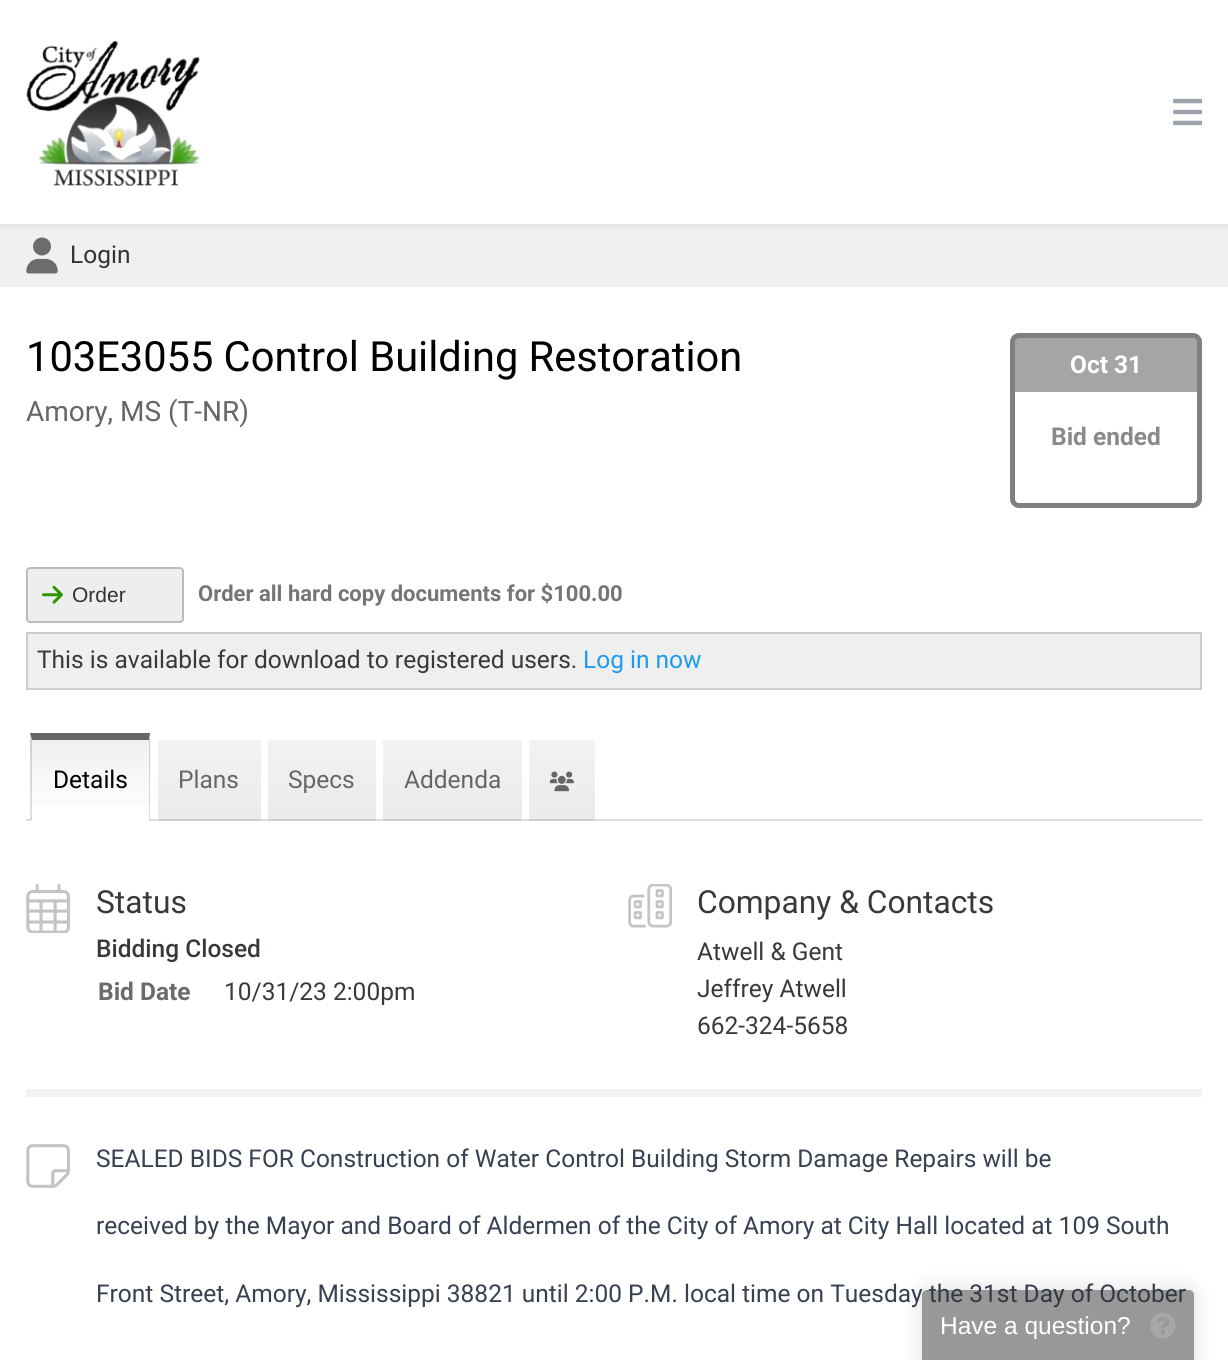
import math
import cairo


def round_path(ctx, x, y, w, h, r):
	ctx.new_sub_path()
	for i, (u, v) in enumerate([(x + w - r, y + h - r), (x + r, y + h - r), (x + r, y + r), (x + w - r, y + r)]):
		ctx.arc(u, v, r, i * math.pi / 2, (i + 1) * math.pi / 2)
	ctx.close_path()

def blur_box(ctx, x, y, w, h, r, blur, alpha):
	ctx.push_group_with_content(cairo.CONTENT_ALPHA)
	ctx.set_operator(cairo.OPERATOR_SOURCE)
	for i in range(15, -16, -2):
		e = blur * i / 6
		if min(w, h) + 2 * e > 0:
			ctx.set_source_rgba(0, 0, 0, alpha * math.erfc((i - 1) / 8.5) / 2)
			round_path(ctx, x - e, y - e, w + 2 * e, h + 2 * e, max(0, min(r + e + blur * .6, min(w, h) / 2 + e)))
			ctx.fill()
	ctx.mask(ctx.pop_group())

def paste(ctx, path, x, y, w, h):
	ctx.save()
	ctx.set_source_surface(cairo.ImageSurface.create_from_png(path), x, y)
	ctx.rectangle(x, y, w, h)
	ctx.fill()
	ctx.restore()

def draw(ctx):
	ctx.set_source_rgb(1, 1, 1)
	ctx.paint()
	ctx.set_source_rgb(0.941, 0.941, 0.941)
	ctx.rectangle(0, 224, 1228, 63)
	ctx.fill()
	paste(ctx, 'media/3.png', 26, 237, 32, 37)
	ctx.save()
	ctx.rectangle(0, 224, 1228, 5)
	ctx.clip()
	ctx.set_source_rgb(0, 0, 0)
	blur_box(ctx, 0, 4, 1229, 224, 0, 3.5, 0.05)
	ctx.restore()
	paste(ctx, 'media/1.png', 26, 41, 174, 145)
	paste(ctx, 'media/2.png', 1173, 98, 29, 28)
	ctx.select_font_face('Roboto')
	ctx.set_font_size(24.5)
	ctx.set_source_rgb(0.2, 0.2, 0.2)
	ctx.move_to(70, 263)
	ctx.show_text('Login')
	ctx.set_font_size(41.6)
	ctx.set_source_rgb(0, 0, 0)
	ctx.move_to(26, 371)
	ctx.show_text('103E3055 Control Building Restoration')
	round_path(ctx, 1012.5, 335.5, 187, 170, 6.5)
	ctx.set_source_rgb(0.502, 0.502, 0.502)
	ctx.set_line_width(5)
	ctx.stroke()
	ctx.set_source_rgba(0.502, 0.502, 0.502, 0.7)
	ctx.rectangle(1015, 338, 182, 54)
	ctx.fill()
	ctx.select_font_face('Roboto', cairo.FONT_SLANT_NORMAL, cairo.FONT_WEIGHT_BOLD)
	ctx.set_font_size(24.5)
	ctx.set_source_rgb(1, 1, 1)
	ctx.move_to(1070, 373)
	ctx.show_text('Oct 31')
	ctx.set_source_rgb(0.529, 0.537, 0.541)
	ctx.move_to(1051, 445)
	ctx.show_text('Bid ended')
	ctx.select_font_face('Roboto')
	ctx.set_font_size(28)
	ctx.set_source_rgb(0.4, 0.4, 0.4)
	ctx.move_to(26, 421)
	ctx.show_text('Amory, MS (T-NR)')
	ctx.set_source_rgb(0.933, 0.933, 0.933)
	round_path(ctx, 27, 568, 156, 54, 3)
	ctx.fill_preserve()
	ctx.set_source_rgb(0.733, 0.733, 0.733)
	ctx.set_line_width(2)
	ctx.stroke()
	paste(ctx, 'media/4.png', 42, 585, 21, 19)
	ctx.select_font_face('Liberation Sans')
	ctx.set_font_size(21)
	ctx.set_source_rgb(0.2, 0.2, 0.2)
	ctx.move_to(72, 602)
	ctx.show_text('Order')
	ctx.select_font_face('Roboto', cairo.FONT_SLANT_NORMAL, cairo.FONT_WEIGHT_BOLD)
	ctx.set_font_size(22)
	ctx.set_source_rgb(0.451, 0.459, 0.467)
	ctx.move_to(198, 601)
	ctx.show_text('Order all hard copy documents for $100.00')
	ctx.set_source_rgb(0.937, 0.937, 0.937)
	ctx.rectangle(27, 633, 1174, 56)
	ctx.fill_preserve()
	ctx.set_source_rgb(0.808, 0.808, 0.808)
	ctx.stroke()
	ctx.select_font_face('Roboto')
	ctx.set_font_size(24.5)
	ctx.set_source_rgb(0.216, 0.227, 0.235)
	ctx.move_to(37, 668)
	ctx.show_text('This is available for download to registered users.')
	ctx.set_source_rgb(0.114, 0.608, 0.941)
	ctx.move_to(583, 668)
	ctx.show_text('Log in now')
	ctx.set_source_rgb(0.871, 0.871, 0.871)
	ctx.rectangle(26, 819, 1176, 2)
	ctx.fill()
	gradient = cairo.LinearGradient(90, 740, 90, 819)
	gradient.add_color_stop_rgba(0, 0.941, 0.941, 0.941, 1)
	gradient.add_color_stop_rgba(1, 1, 1, 1, 1)
	ctx.set_source(gradient)
	ctx.rectangle(30, 740, 121, 66)
	ctx.fill()
	gradient = cairo.LinearGradient(90, 819, 90, 898)
	gradient.add_color_stop_rgba(0, 0.82, 0.82, 0.82, 1)
	gradient.add_color_stop_rgba(1, 0.871, 0.871, 0.871, 1)
	ctx.set_source(gradient)
	ctx.rectangle(30, 819, 121, 2)
	ctx.fill()
	ctx.set_source_rgb(0.4, 0.4, 0.4)
	ctx.new_path()
	ctx.move_to(30, 733)
	ctx.line_to(150, 733)
	ctx.line_to(149, 740)
	ctx.line_to(32, 740)
	ctx.close_path()
	ctx.fill()
	ctx.set_source_rgba(0, 0, 0, 0.13)
	ctx.new_path()
	ctx.move_to(150, 733)
	ctx.line_to(150, 821)
	ctx.line_to(149, 819)
	ctx.line_to(149, 740)
	ctx.close_path()
	ctx.fill()
	ctx.set_source_rgb(1, 1, 1)
	ctx.new_path()
	ctx.move_to(150, 821)
	ctx.line_to(30, 821)
	ctx.line_to(32, 819)
	ctx.line_to(149, 819)
	ctx.close_path()
	ctx.fill()
	ctx.set_source_rgba(0, 0, 0, 0.13)
	ctx.new_path()
	ctx.move_to(30, 821)
	ctx.line_to(30, 733)
	ctx.line_to(32, 740)
	ctx.line_to(32, 819)
	ctx.close_path()
	ctx.fill()
	ctx.set_source_rgb(0, 0, 0)
	ctx.move_to(53, 788)
	ctx.show_text('Details')
	gradient = cairo.LinearGradient(209, 740, 209, 821)
	gradient.add_color_stop_rgba(0, 0, 0, 0, 0.05)
	gradient.add_color_stop_rgba(1, 0, 0, 0, 0.08)
	ctx.set_source(gradient)
	ctx.rectangle(158, 740, 103, 81)
	ctx.fill()
	ctx.set_source_rgb(0.4, 0.4, 0.4)
	ctx.move_to(178, 788)
	ctx.show_text('Plans')
	gradient = cairo.LinearGradient(322, 740, 322, 821)
	gradient.add_color_stop_rgba(0, 0, 0, 0, 0.05)
	gradient.add_color_stop_rgba(1, 0, 0, 0, 0.08)
	ctx.set_source(gradient)
	ctx.rectangle(268, 740, 108, 81)
	ctx.fill()
	ctx.set_source_rgb(0.4, 0.4, 0.4)
	ctx.move_to(288, 788)
	ctx.show_text('Specs')
	gradient = cairo.LinearGradient(452, 740, 452, 821)
	gradient.add_color_stop_rgba(0, 0, 0, 0, 0.05)
	gradient.add_color_stop_rgba(1, 0, 0, 0, 0.08)
	ctx.set_source(gradient)
	ctx.rectangle(383, 740, 139, 81)
	ctx.fill()
	ctx.set_source_rgb(0.4, 0.4, 0.4)
	ctx.move_to(404, 788)
	ctx.show_text('Addenda')
	gradient = cairo.LinearGradient(562, 740, 562, 821)
	gradient.add_color_stop_rgba(0, 0, 0, 0, 0.05)
	gradient.add_color_stop_rgba(1, 0, 0, 0, 0.08)
	ctx.set_source(gradient)
	ctx.rectangle(529, 740, 66, 81)
	ctx.fill()
	paste(ctx, 'media/5.png', 550, 771, 24, 21)
	paste(ctx, 'media/6.png', 26, 884, 44, 49)
	ctx.set_font_size(31.75)
	ctx.set_source_rgb(0.216, 0.227, 0.235)
	ctx.move_to(96, 913)
	ctx.show_text('Status')
	ctx.select_font_face('Roboto Medium')
	ctx.set_font_size(24.5)
	ctx.move_to(96, 957)
	ctx.show_text('Bidding Closed')
	ctx.select_font_face('Roboto', cairo.FONT_SLANT_NORMAL, cairo.FONT_WEIGHT_BOLD)
	ctx.set_source_rgb(0.412, 0.42, 0.427)
	ctx.move_to(98, 1000)
	ctx.show_text('Bid Date')
	ctx.select_font_face('Roboto')
	ctx.set_source_rgb(0.216, 0.227, 0.235)
	ctx.move_to(224, 1000)
	ctx.show_text('10/31/23 2:00pm')
	paste(ctx, 'media/7.png', 628, 884, 44, 44)
	ctx.set_font_size(31.75)
	ctx.move_to(697, 913)
	ctx.show_text('Company & Contacts')
	ctx.set_font_size(24.5)
	for x, y, s in [
		(697, 960, 'Atwell & Gent'),
		(697, 997, 'Jeffrey Atwell'),
		(697, 1034, '662-324-5658'),
	]:
		ctx.move_to(x, y)
		ctx.show_text(s)
	ctx.set_source_rgb(0.949, 0.949, 0.949)
	ctx.rectangle(26, 1089, 1176, 8)
	ctx.fill()
	paste(ctx, 'media/8.png', 26, 1144, 44, 44)
	ctx.set_source_rgb(0.216, 0.255, 0.318)
	for x, y, s in [
		(96, 1167, 'SEALED BIDS FOR Construction of Water Control Building Storm Damage Repairs will be'),
		(96, 1234, 'received by the Mayor and Board of Aldermen of the City of Amory at City Hall located at 109 South'),
		(96, 1302, 'Front Street, Amory, Mississippi 38821 until 2:00 P.M. local time on Tuesday the 31st Day of October'),
	]:
		ctx.move_to(x, y)
		ctx.show_text(s)
	ctx.save()
	ctx.set_fill_rule(cairo.FILL_RULE_EVEN_ODD)
	ctx.new_path()
	ctx.move_to(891, 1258)
	ctx.line_to(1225, 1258)
	ctx.line_to(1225, 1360)
	ctx.line_to(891, 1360)
	ctx.close_path()
	ctx.move_to(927, 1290)
	ctx.line_to(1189, 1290)
	ctx.curve_to(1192, 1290, 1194, 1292, 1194, 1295)
	ctx.line_to(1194, 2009)
	ctx.line_to(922, 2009)
	ctx.line_to(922, 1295)
	ctx.curve_to(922, 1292, 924, 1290, 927, 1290)
	ctx.close_path()
	ctx.clip()
	ctx.set_source_rgb(0, 0, 0)
	blur_box(ctx, 919, 1286, 278, 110, 9, 9, 0.1)
	ctx.restore()
	ctx.set_source_rgba(0.2, 0.2, 0.2, 0.5)
	ctx.new_path()
	ctx.move_to(927, 1290)
	ctx.line_to(1189, 1290)
	ctx.curve_to(1192, 1290, 1194, 1292, 1194, 1295)
	ctx.line_to(1194, 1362)
	ctx.line_to(922, 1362)
	ctx.line_to(922, 1295)
	ctx.curve_to(922, 1292, 924, 1290, 927, 1290)
	ctx.close_path()
	ctx.fill()
	ctx.select_font_face('Liberation Sans')
	ctx.set_source_rgb(1, 1, 1)
	ctx.move_to(940, 1334)
	ctx.show_text('Have a question?')
	paste(ctx, 'media/9.png', 1150, 1313, 26, 26)


surface = cairo.ImageSurface(cairo.FORMAT_RGB24, 1228, 1360)
ctx = cairo.Context(surface)
options = cairo.FontOptions()
options.set_hint_metrics(cairo.HINT_METRICS_OFF)
options.set_hint_style(cairo.HINT_STYLE_NONE)
ctx.set_font_options(options)
ctx.set_miter_limit(4)
draw(ctx)
surface.write_to_png('image.png')
